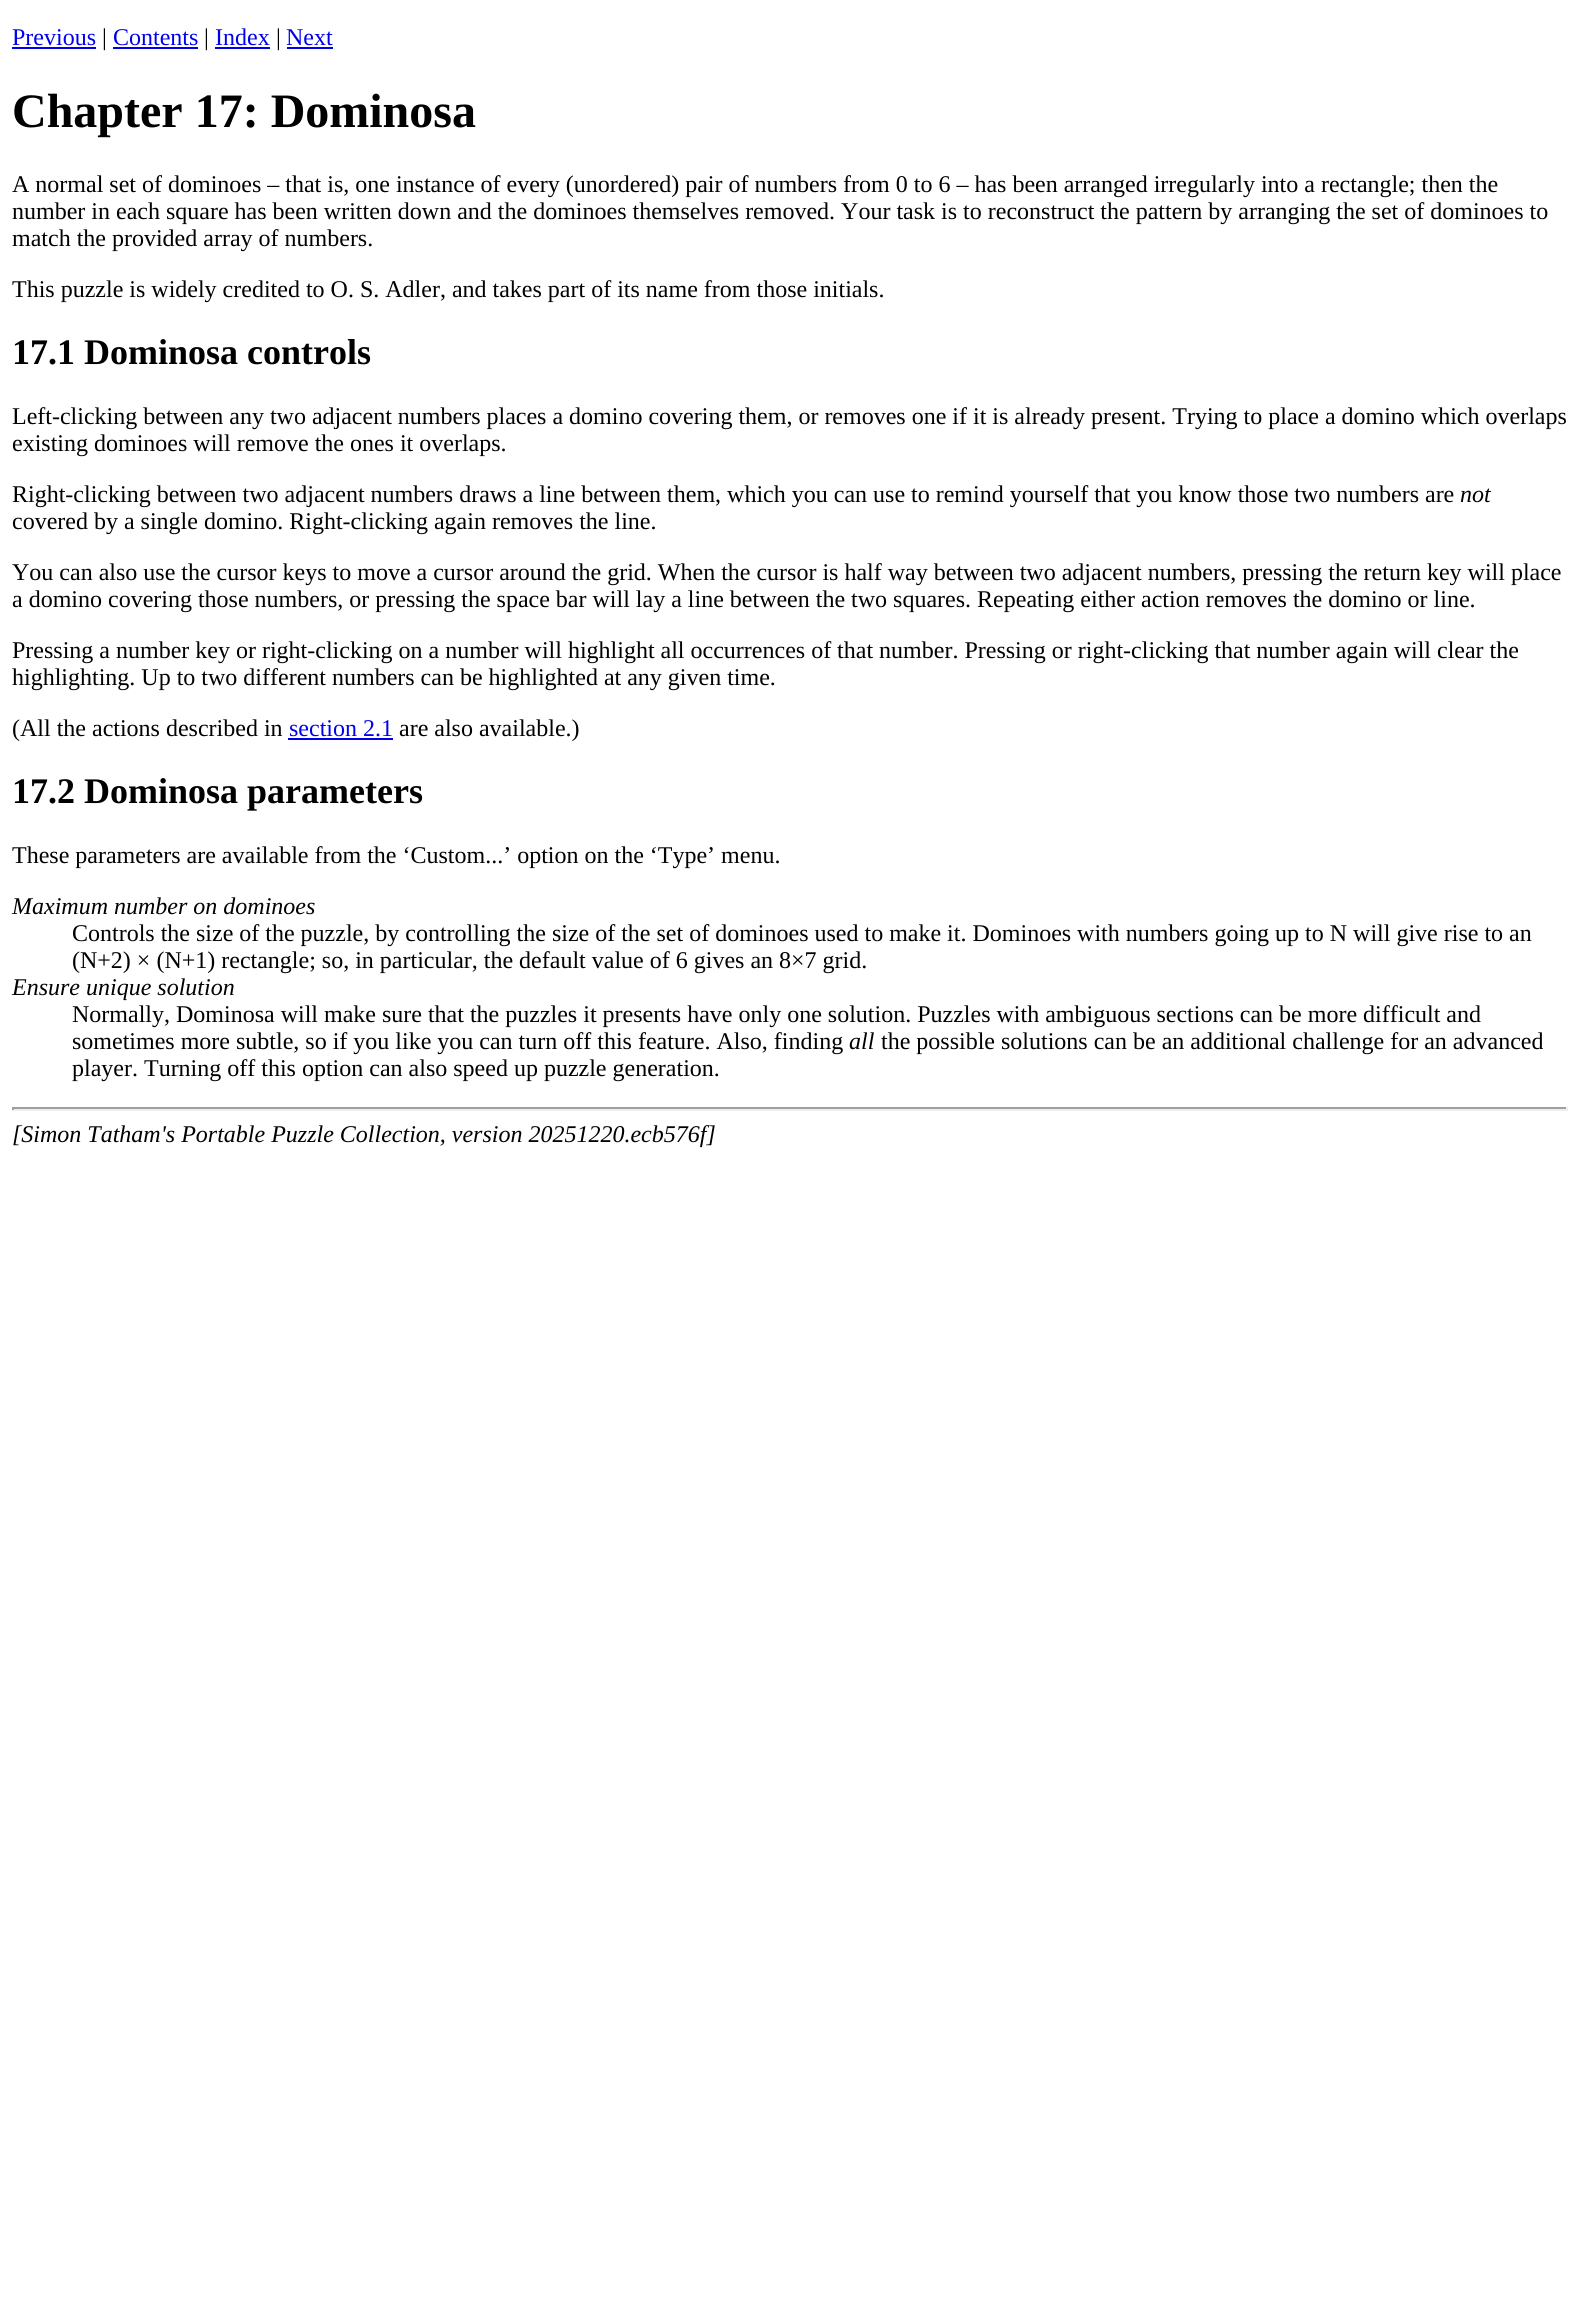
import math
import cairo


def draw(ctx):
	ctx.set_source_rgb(1, 1, 1)
	ctx.paint()
	ctx.select_font_face('Liberation Serif')
	ctx.set_font_size(24)
	ctx.set_source_rgb(0, 0, 0.933)
	ctx.move_to(12, 45)
	ctx.show_text('Previous')
	ctx.rectangle(12, 47, 84, 2)
	ctx.fill()
	ctx.set_source_rgb(0, 0, 0)
	ctx.move_to(102, 45)
	ctx.show_text('|')
	ctx.set_source_rgb(0, 0, 0.933)
	ctx.move_to(113, 45)
	ctx.show_text('Contents')
	ctx.rectangle(113, 47, 85, 2)
	ctx.fill()
	ctx.set_source_rgb(0, 0, 0)
	ctx.move_to(204, 45)
	ctx.show_text('|')
	ctx.set_source_rgb(0, 0, 0.933)
	ctx.move_to(215, 45)
	ctx.show_text('Index')
	ctx.rectangle(215, 47, 55, 2)
	ctx.fill()
	ctx.set_source_rgb(0, 0, 0)
	ctx.move_to(276, 45)
	ctx.show_text('|')
	ctx.set_source_rgb(0, 0, 0.933)
	ctx.move_to(286, 45)
	ctx.show_text('Next')
	ctx.rectangle(287, 47, 46, 2)
	ctx.fill()
	ctx.select_font_face('Liberation Serif', cairo.FONT_SLANT_NORMAL, cairo.FONT_WEIGHT_BOLD)
	ctx.set_font_size(48)
	ctx.set_source_rgb(0, 0, 0)
	ctx.move_to(12, 127)
	ctx.show_text('Chapter 17: Dominosa')
	ctx.select_font_face('Liberation Serif')
	ctx.set_font_size(24)
	for x, y, s in [
		(12, 192, 'A normal set of dominoes – that is, one instance of every (unordered) pair of numbers from 0 to 6 – has been arranged irregularly into a rectangle; then the'),
		(12, 219, 'number in each square has been written down and the dominoes themselves removed. Your task is to reconstruct the pattern by arranging the set of dominoes to'),
		(12, 246, 'match the provided array of numbers.'),
		(12, 297, 'This puzzle is widely credited to O. S. Adler, and takes part of its name from those initials.'),
	]:
		ctx.move_to(x, y)
		ctx.show_text(s)
	ctx.select_font_face('Liberation Serif', cairo.FONT_SLANT_NORMAL, cairo.FONT_WEIGHT_BOLD)
	ctx.set_font_size(36)
	ctx.move_to(12, 364)
	ctx.show_text('17.1 Dominosa controls')
	ctx.select_font_face('Liberation Serif')
	ctx.set_font_size(24)
	for x, y, s in [
		(12, 424, 'Left-clicking between any two adjacent numbers places a domino covering them, or removes one if it is already present. Trying to place a domino which overlaps'),
		(12, 451, 'existing dominoes will remove the ones it overlaps.'),
		(12, 502, 'Right-clicking between two adjacent numbers draws a line between them, which you can use to remind yourself that you know those two numbers are'),
	]:
		ctx.move_to(x, y)
		ctx.show_text(s)
	ctx.select_font_face('Liberation Serif', cairo.FONT_SLANT_ITALIC)
	ctx.move_to(1460, 502)
	ctx.show_text('not')
	ctx.select_font_face('Liberation Serif')
	for x, y, s in [
		(12, 529, 'covered by a single domino. Right-clicking again removes the line.'),
		(12, 580, 'You can also use the cursor keys to move a cursor around the grid. When the cursor is half way between two adjacent numbers, pressing the return key will place'),
		(12, 607, 'a domino covering those numbers, or pressing the space bar will lay a line between the two squares. Repeating either action removes the domino or line.'),
		(12, 658, 'Pressing a number key or right-clicking on a number will highlight all occurrences of that number. Pressing or right-clicking that number again will clear the'),
		(12, 685, 'highlighting. Up to two different numbers can be highlighted at any given time.'),
		(12, 736, '(All the actions described in'),
	]:
		ctx.move_to(x, y)
		ctx.show_text(s)
	ctx.set_source_rgb(0, 0, 0.933)
	ctx.move_to(289, 736)
	ctx.show_text('section 2.1')
	ctx.rectangle(288, 738, 105, 2)
	ctx.fill()
	ctx.set_source_rgb(0, 0, 0)
	ctx.move_to(399, 736)
	ctx.show_text('are also available.)')
	ctx.select_font_face('Liberation Serif', cairo.FONT_SLANT_NORMAL, cairo.FONT_WEIGHT_BOLD)
	ctx.set_font_size(36)
	ctx.move_to(12, 803)
	ctx.show_text('17.2 Dominosa parameters')
	ctx.select_font_face('Liberation Serif')
	ctx.set_font_size(24)
	ctx.move_to(12, 863)
	ctx.show_text('These parameters are available from the ‘Custom...’ option on the ‘Type’ menu.')
	ctx.select_font_face('Liberation Serif', cairo.FONT_SLANT_ITALIC)
	ctx.move_to(12, 914)
	ctx.show_text('Maximum number on dominoes')
	ctx.select_font_face('Liberation Serif')
	ctx.move_to(72, 941)
	ctx.show_text('Controls the size of the puzzle, by controlling the size of the set of dominoes used to make it. Dominoes with numbers going up to N will give rise to an')
	ctx.move_to(72, 968)
	ctx.show_text('(N+2) × (N+1) rectangle; so, in particular, the default value of 6 gives an 8×7 grid.')
	ctx.select_font_face('Liberation Serif', cairo.FONT_SLANT_ITALIC)
	ctx.move_to(12, 995)
	ctx.show_text('Ensure unique solution')
	ctx.select_font_face('Liberation Serif')
	ctx.move_to(72, 1022)
	ctx.show_text('Normally, Dominosa will make sure that the puzzles it presents have only one solution. Puzzles with ambiguous sections can be more difficult and')
	ctx.move_to(72, 1049)
	ctx.show_text('sometimes more subtle, so if you like you can turn off this feature. Also, finding')
	ctx.select_font_face('Liberation Serif', cairo.FONT_SLANT_ITALIC)
	ctx.move_to(849, 1049)
	ctx.show_text('all')
	ctx.select_font_face('Liberation Serif')
	ctx.move_to(881, 1049)
	ctx.show_text('the possible solutions can be an additional challenge for an advanced')
	ctx.move_to(72, 1076)
	ctx.show_text('player. Turning off this option can also speed up puzzle generation.')
	ctx.set_source_rgb(0.624, 0.624, 0.624)
	ctx.rectangle(12, 1107, 1556, 2)
	ctx.fill()
	ctx.set_source_rgb(0.933, 0.933, 0.933)
	ctx.rectangle(1566, 1107, 2, 3)
	ctx.rectangle(12, 1109, 1556, 2)
	ctx.fill()
	ctx.set_source_rgb(0.624, 0.624, 0.624)
	ctx.rectangle(12, 1107, 2, 3)
	ctx.fill()
	ctx.select_font_face('Liberation Serif', cairo.FONT_SLANT_ITALIC)
	ctx.set_source_rgb(0, 0, 0)
	ctx.move_to(12, 1142)
	ctx.show_text('[Simon Tatham\'s Portable Puzzle Collection, version 20251220.ecb576f]')


surface = cairo.ImageSurface(cairo.FORMAT_RGB24, 1579, 2306)
ctx = cairo.Context(surface)
options = cairo.FontOptions()
options.set_hint_metrics(cairo.HINT_METRICS_OFF)
options.set_hint_style(cairo.HINT_STYLE_NONE)
ctx.set_font_options(options)
ctx.set_miter_limit(4)
draw(ctx)
surface.write_to_png('image.png')
